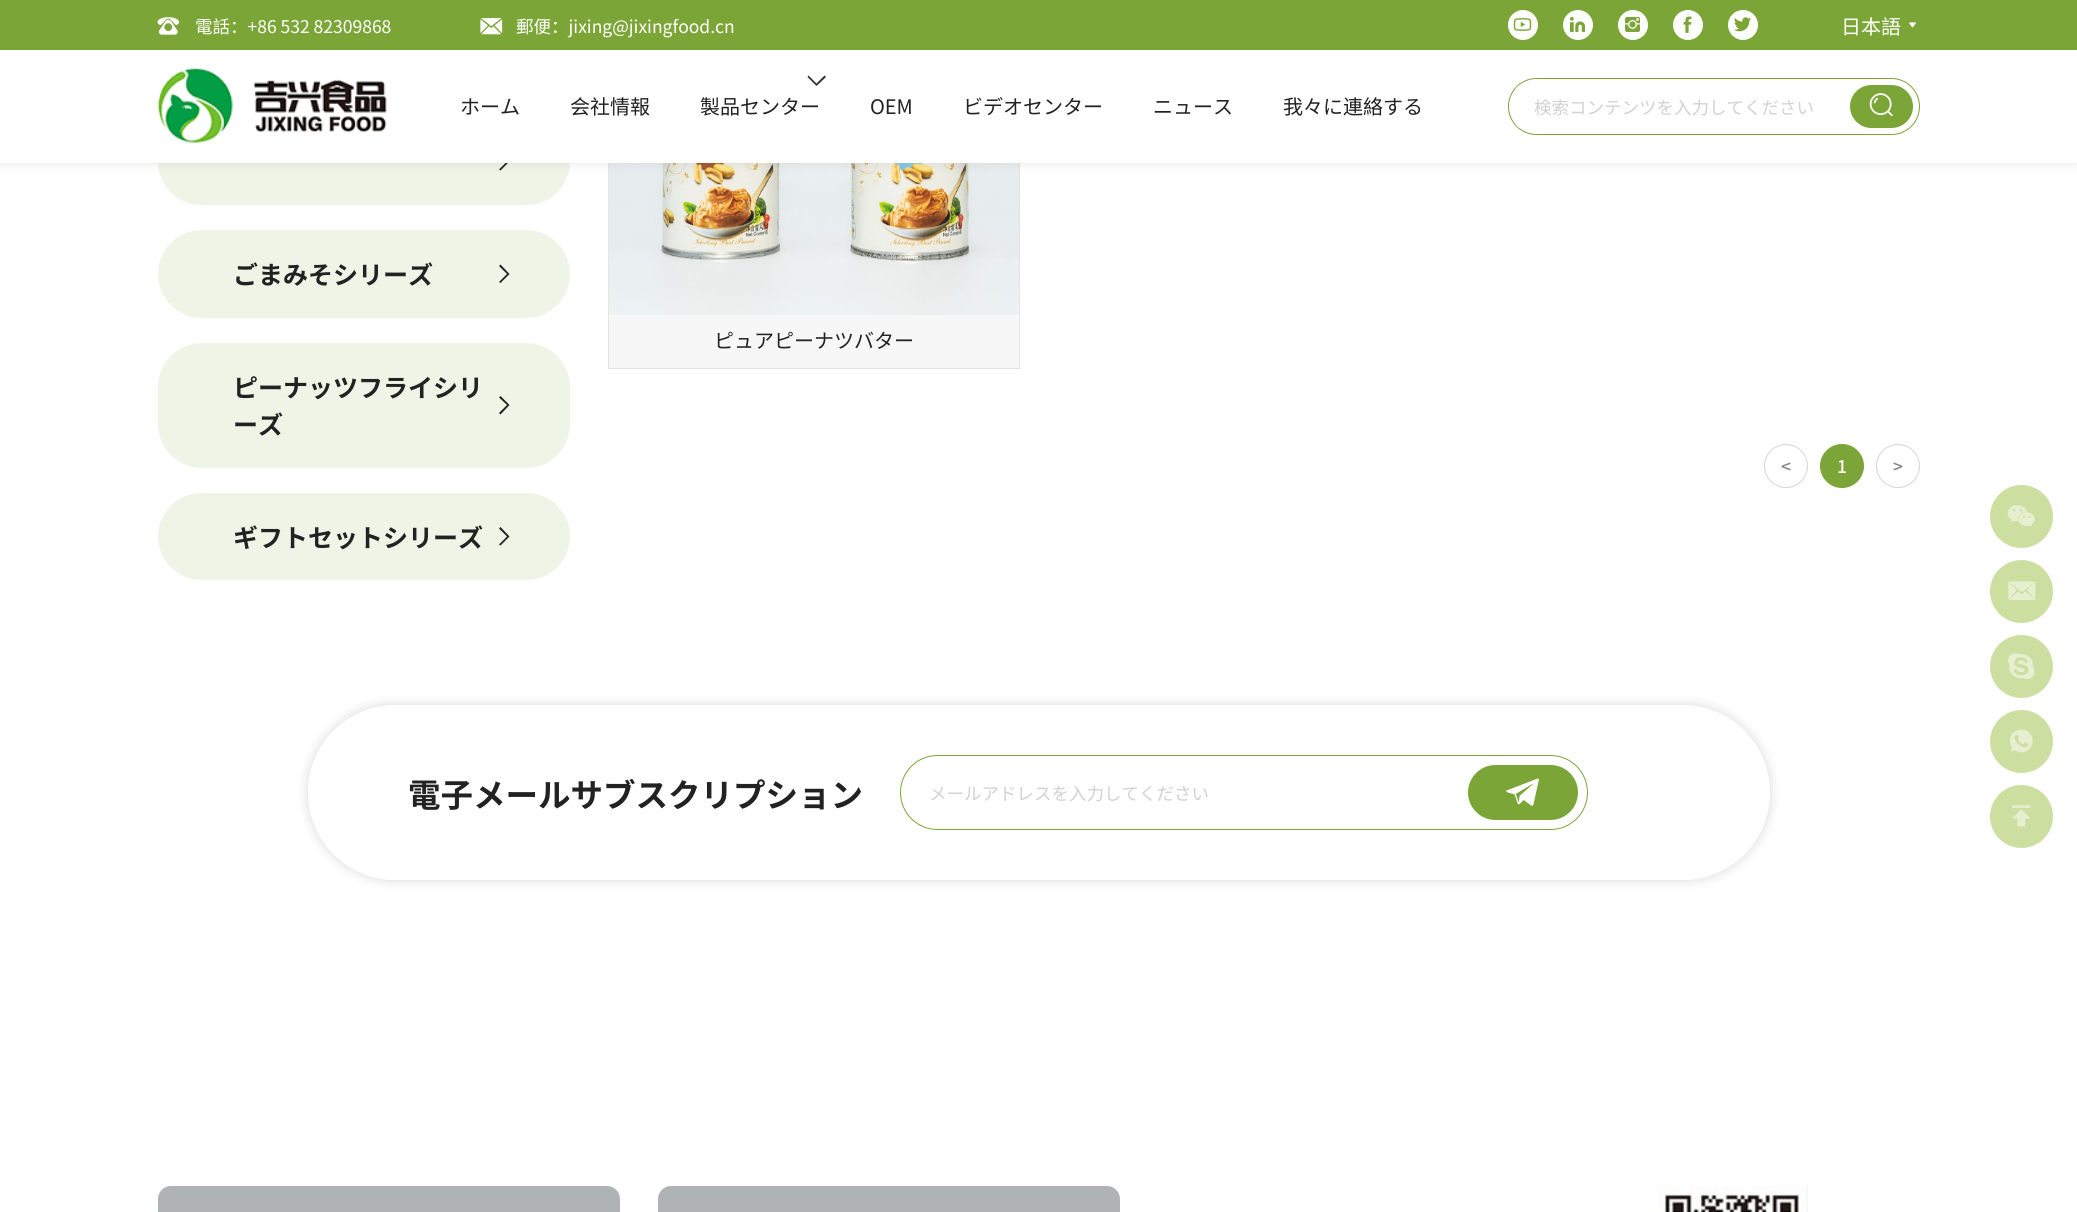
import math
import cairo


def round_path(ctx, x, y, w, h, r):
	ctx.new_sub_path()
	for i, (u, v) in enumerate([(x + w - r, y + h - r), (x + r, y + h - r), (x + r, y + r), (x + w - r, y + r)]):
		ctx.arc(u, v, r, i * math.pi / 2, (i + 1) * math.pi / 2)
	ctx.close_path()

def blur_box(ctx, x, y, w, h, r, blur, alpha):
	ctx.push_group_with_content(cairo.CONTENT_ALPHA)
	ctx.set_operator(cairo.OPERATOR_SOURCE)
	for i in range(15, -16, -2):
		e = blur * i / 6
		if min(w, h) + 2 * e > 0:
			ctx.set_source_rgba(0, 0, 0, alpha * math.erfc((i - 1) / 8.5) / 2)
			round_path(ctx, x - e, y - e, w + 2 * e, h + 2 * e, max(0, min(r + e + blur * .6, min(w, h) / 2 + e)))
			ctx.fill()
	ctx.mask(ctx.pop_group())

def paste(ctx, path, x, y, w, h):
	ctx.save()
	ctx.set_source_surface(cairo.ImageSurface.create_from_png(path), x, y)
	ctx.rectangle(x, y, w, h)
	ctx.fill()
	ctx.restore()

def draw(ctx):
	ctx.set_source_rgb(1, 1, 1)
	ctx.paint()
	ctx.set_source_rgb(0.937, 0.957, 0.906)
	round_path(ctx, 158, 118, 412, 87, 43.5)
	ctx.fill()
	ctx.set_source_rgb(0.133, 0.133, 0.133)
	ctx.new_path()
	ctx.move_to(499, 153.5)
	ctx.line_to(500.5, 152)
	ctx.line_to(509.5, 161.5)
	ctx.line_to(500.5, 170.5)
	ctx.line_to(499, 169.5)
	ctx.line_to(507, 161.5)
	ctx.close_path()
	ctx.fill()
	ctx.set_source_rgb(0.965, 0.965, 0.965)
	ctx.rectangle(609, 261, 410, 107)
	ctx.fill()
	ctx.rectangle(608.5, 15.5, 411, 353)
	ctx.set_source_rgb(0.89, 0.89, 0.89)
	ctx.set_line_width(1)
	ctx.stroke()
	paste(ctx, 'media/11.png', 608, 163, 411, 152)
	paste(ctx, 'media/12.png', 660, 163, 359, 98)
	ctx.set_source_rgb(0, 0, 0)
	blur_box(ctx, 0, 0, 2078, 163, 0, 6, 0.1)
	ctx.set_source_rgb(1, 1, 1)
	ctx.rectangle(0, 50, 2077, 113)
	ctx.fill()
	ctx.set_source_rgb(0.486, 0.647, 0.216)
	ctx.rectangle(0, 0, 2077, 50)
	ctx.fill()
	paste(ctx, 'media/1.png', 157, 17, 23, 18)
	ctx.select_font_face('Noto Sans SC')
	ctx.set_font_size(17.5)
	ctx.set_source_rgb(1, 1, 1)
	ctx.move_to(195, 33)
	ctx.show_text('電話：+86 532 82309868')
	paste(ctx, 'media/2.png', 480, 18, 23, 17)
	ctx.move_to(516, 33)
	ctx.show_text('郵便：jixing@jixingfood.cn')
	ctx.new_path()
	ctx.arc(1523, 25, 15, 0, 2 * math.pi)
	ctx.fill()
	paste(ctx, 'media/3.png', 1513, 18, 19, 13)
	ctx.arc(1578, 25, 15, 0, 2 * math.pi)
	ctx.fill()
	paste(ctx, 'media/4.png', 1570, 17, 15, 15)
	ctx.arc(1633, 25, 15, 0, 2 * math.pi)
	ctx.fill()
	paste(ctx, 'media/5.png', 1625, 17, 15, 15)
	ctx.arc(1688, 25, 15, 0, 2 * math.pi)
	ctx.fill()
	paste(ctx, 'media/6.png', 1683, 16, 9, 17)
	ctx.arc(1743, 25, 15, 0, 2 * math.pi)
	ctx.fill()
	paste(ctx, 'media/7.png', 1734, 17, 17, 15)
	ctx.set_font_size(20)
	ctx.move_to(1841, 34)
	ctx.show_text('日本語')
	paste(ctx, 'media/8.png', 1909, 22, 7, 6)
	paste(ctx, 'media/9.png', 157, 68, 230, 76)
	ctx.set_source_rgb(0.133, 0.133, 0.133)
	ctx.move_to(460, 114)
	ctx.show_text('ホーム')
	ctx.move_to(570, 114)
	ctx.show_text('会社情報')
	ctx.set_source_rgb(0.2, 0.2, 0.2)
	ctx.new_path()
	ctx.move_to(824.5, 75.5)
	ctx.line_to(826, 77)
	ctx.line_to(816.5, 86)
	ctx.line_to(807.5, 77)
	ctx.line_to(808.5, 75.5)
	ctx.line_to(816.5, 83.5)
	ctx.close_path()
	ctx.fill()
	ctx.set_source_rgb(0.133, 0.133, 0.133)
	for x, y, s in [
		(700, 114, '製品センター'),
		(870, 114, 'OEM'),
		(963, 114, 'ビデオセンター'),
		(1153, 114, 'ニュース'),
		(1283, 114, '我々に連絡する'),
	]:
		ctx.move_to(x, y)
		ctx.show_text(s)
	round_path(ctx, 1508.5, 78.5, 411, 56, 28)
	ctx.set_source_rgb(0.486, 0.647, 0.216)
	ctx.stroke()
	ctx.save()
	round_path(ctx, 1509, 79, 410, 55, 27.5)
	ctx.clip()
	ctx.set_source_rgb(1, 1, 1)
	ctx.rectangle(1515, 85, 335, 43)
	ctx.fill()
	ctx.restore()
	ctx.set_font_size(17.5)
	ctx.set_source_rgb(0.82, 0.82, 0.82)
	ctx.move_to(1534, 114)
	ctx.show_text('検索コンテンツを入力してください')
	ctx.set_source_rgb(0.486, 0.647, 0.216)
	round_path(ctx, 1850, 85, 63, 43, 21.5)
	ctx.fill()
	paste(ctx, 'media/10.png', 1869, 93, 24, 24)
	ctx.set_source_rgb(0.937, 0.957, 0.906)
	round_path(ctx, 158, 230, 412, 88, 44)
	ctx.fill()
	ctx.select_font_face('Noto Sans SC', cairo.FONT_SLANT_NORMAL, cairo.FONT_WEIGHT_BOLD)
	ctx.set_font_size(25)
	ctx.set_source_rgb(0.133, 0.133, 0.133)
	ctx.move_to(233, 284)
	ctx.show_text('ごまみそシリーズ')
	ctx.new_path()
	ctx.move_to(499, 266)
	ctx.line_to(500.5, 264.5)
	ctx.line_to(509.5, 274)
	ctx.line_to(500.5, 283)
	ctx.line_to(499, 282)
	ctx.line_to(507, 274)
	ctx.close_path()
	ctx.fill()
	ctx.set_source_rgb(0.937, 0.957, 0.906)
	round_path(ctx, 158, 343, 412, 125, 44)
	ctx.fill()
	ctx.set_source_rgb(0.133, 0.133, 0.133)
	ctx.move_to(233, 397)
	ctx.show_text('ピーナッツフライシリ')
	ctx.new_path()
	ctx.move_to(499, 397.5)
	ctx.line_to(500.5, 396)
	ctx.line_to(509.5, 405)
	ctx.line_to(500.5, 414.5)
	ctx.line_to(499, 413)
	ctx.line_to(507, 405)
	ctx.close_path()
	ctx.fill()
	ctx.move_to(233, 434)
	ctx.show_text('ーズ')
	ctx.set_source_rgb(0.937, 0.957, 0.906)
	round_path(ctx, 158, 493, 412, 87, 43.5)
	ctx.fill()
	ctx.set_source_rgb(0.133, 0.133, 0.133)
	ctx.move_to(233, 547)
	ctx.show_text('ギフトセットシリーズ')
	ctx.new_path()
	ctx.move_to(499, 528.5)
	ctx.line_to(500.5, 527)
	ctx.line_to(509.5, 536.5)
	ctx.line_to(500.5, 545.5)
	ctx.line_to(499, 544.5)
	ctx.line_to(507, 536.5)
	ctx.close_path()
	ctx.fill()
	ctx.select_font_face('Noto Sans SC')
	ctx.set_font_size(20)
	ctx.move_to(714, 348)
	ctx.show_text('ピュアピーナツバター')
	ctx.new_path()
	ctx.arc(1786, 466, 21.5, 0, 2 * math.pi)
	ctx.set_source_rgb(0.835, 0.835, 0.835)
	ctx.stroke()
	ctx.select_font_face('Noto Sans SC Medium')
	ctx.set_font_size(17.5)
	ctx.set_source_rgb(0.518, 0.518, 0.518)
	ctx.move_to(1781, 473)
	ctx.show_text('<')
	ctx.set_source_rgb(0.486, 0.647, 0.216)
	ctx.new_path()
	ctx.arc(1842, 466, 21.5, 0, 2 * math.pi)
	ctx.fill_preserve()
	ctx.stroke()
	ctx.set_source_rgb(1, 1, 1)
	ctx.move_to(1837, 473)
	ctx.show_text('1')
	ctx.new_path()
	ctx.arc(1898, 466, 21.5, 0, 2 * math.pi)
	ctx.set_source_rgb(0.835, 0.835, 0.835)
	ctx.stroke()
	ctx.set_source_rgb(0.518, 0.518, 0.518)
	ctx.move_to(1893, 473)
	ctx.show_text('>')
	ctx.save()
	ctx.set_fill_rule(cairo.FILL_RULE_EVEN_ODD)
	ctx.new_path()
	ctx.move_to(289, 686)
	ctx.line_to(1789, 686)
	ctx.line_to(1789, 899)
	ctx.line_to(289, 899)
	ctx.close_path()
	ctx.move_to(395.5, 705)
	ctx.line_to(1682.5, 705)
	ctx.curve_to(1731, 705, 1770, 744, 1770, 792.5)
	ctx.curve_to(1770, 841, 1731, 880, 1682.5, 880)
	ctx.line_to(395.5, 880)
	ctx.curve_to(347, 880, 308, 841, 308, 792.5)
	ctx.curve_to(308, 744, 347, 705, 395.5, 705)
	ctx.close_path()
	ctx.clip()
	ctx.set_source_rgb(0, 0, 0)
	blur_box(ctx, 308, 705, 1462, 175, 87.5, 6, 0.15)
	ctx.restore()
	ctx.select_font_face('Noto Sans SC', cairo.FONT_SLANT_NORMAL, cairo.FONT_WEIGHT_BOLD)
	ctx.set_font_size(32.5)
	ctx.set_source_rgb(0.133, 0.133, 0.133)
	ctx.move_to(408, 807)
	ctx.show_text('電子メールサブスクリプション')
	round_path(ctx, 900.5, 755.5, 687, 74, 37)
	ctx.set_source_rgb(0.486, 0.647, 0.216)
	ctx.stroke()
	ctx.select_font_face('Noto Sans SC')
	ctx.set_font_size(17.5)
	ctx.set_source_rgb(0.82, 0.82, 0.82)
	ctx.move_to(929, 800)
	ctx.show_text('メールアドレスを入力してください')
	ctx.set_source_rgb(0.486, 0.647, 0.216)
	round_path(ctx, 1468, 765, 110, 55, 27.5)
	ctx.fill()
	paste(ctx, 'media/13.png', 1506, 778, 33, 28)
	ctx.set_source_rgb(0.686, 0.702, 0.702)
	round_path(ctx, 158, 1186, 462, 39, 13)
	ctx.fill()
	round_path(ctx, 658, 1186, 462, 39, 13)
	ctx.fill()
	paste(ctx, 'media/14.png', 1658, 1186, 150, 26)
	paste(ctx, 'media/15.png', 1664, 1194, 136, 18)
	ctx.set_source_rgb(0.804, 0.871, 0.631)
	ctx.arc(2021.5, 516.5, 31.5, 0, 2 * math.pi)
	ctx.fill()
	paste(ctx, 'media/16.png', 2007, 505, 28, 22)
	ctx.arc(2021.5, 591.5, 31.5, 0, 2 * math.pi)
	ctx.fill()
	paste(ctx, 'media/17.png', 2008, 581, 28, 19)
	ctx.arc(2021.5, 666.5, 31.5, 0, 2 * math.pi)
	ctx.fill()
	paste(ctx, 'media/18.png', 2008, 653, 27, 27)
	ctx.arc(2021.5, 741.5, 31.5, 0, 2 * math.pi)
	ctx.fill()
	paste(ctx, 'media/19.png', 2009, 729, 24, 24)
	ctx.arc(2021.5, 816.5, 31.5, 0, 2 * math.pi)
	ctx.fill()
	paste(ctx, 'media/20.png', 2012, 805, 19, 22)


surface = cairo.ImageSurface(cairo.FORMAT_RGB24, 2077, 1212)
ctx = cairo.Context(surface)
options = cairo.FontOptions()
options.set_hint_metrics(cairo.HINT_METRICS_OFF)
options.set_hint_style(cairo.HINT_STYLE_NONE)
ctx.set_font_options(options)
ctx.set_miter_limit(4)
draw(ctx)
surface.write_to_png('image.png')
